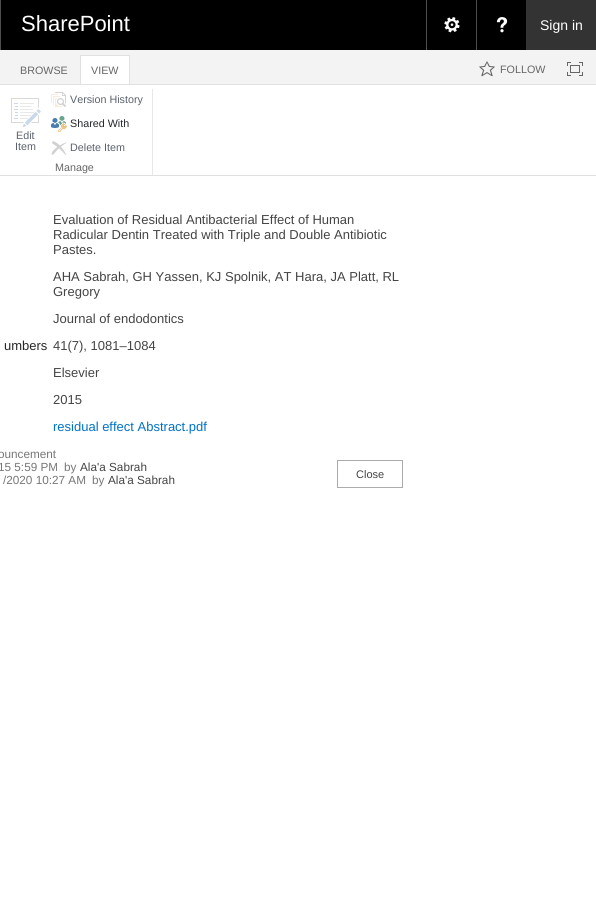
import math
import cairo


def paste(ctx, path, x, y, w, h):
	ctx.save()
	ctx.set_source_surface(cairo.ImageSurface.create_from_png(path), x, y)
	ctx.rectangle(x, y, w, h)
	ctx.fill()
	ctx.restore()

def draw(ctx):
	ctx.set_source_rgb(1, 1, 1)
	ctx.paint()
	ctx.set_source_rgb(0, 0, 0)
	ctx.rectangle(1, 0, 525, 50)
	ctx.fill()
	ctx.set_source_rgb(0.302, 0.302, 0.302)
	ctx.rectangle(0, 0, 1, 50)
	ctx.fill()
	ctx.select_font_face('Liberation Sans')
	ctx.set_font_size(22)
	ctx.set_source_rgb(1, 1, 1)
	ctx.move_to(21, 31)
	ctx.show_text('SharePoint')
	ctx.set_source_rgb(0.302, 0.302, 0.302)
	ctx.rectangle(426, 0, 1, 50)
	ctx.fill()
	paste(ctx, 'media/1.png', 444, 17, 16, 16)
	ctx.rectangle(476, 0, 1, 50)
	ctx.fill()
	paste(ctx, 'media/2.png', 496, 17, 12, 16)
	ctx.set_source_rgb(0.2, 0.2, 0.2)
	ctx.rectangle(526, 0, 70, 50)
	ctx.fill()
	ctx.set_font_size(14)
	ctx.set_source_rgb(1, 1, 1)
	ctx.move_to(540, 30)
	ctx.show_text('Sign in')
	ctx.set_source_rgb(0.953, 0.953, 0.953)
	ctx.rectangle(0, 50, 596, 34)
	ctx.fill()
	ctx.set_source_rgb(0.882, 0.882, 0.882)
	ctx.rectangle(0, 84, 596, 1)
	ctx.fill()
	ctx.set_font_size(10.75)
	ctx.set_source_rgb(0.4, 0.4, 0.4)
	ctx.move_to(20, 74)
	ctx.show_text('BROWSE')
	ctx.set_source_rgb(1, 1, 1)
	ctx.rectangle(81, 56, 48, 28)
	ctx.fill()
	ctx.set_source_rgb(0.882, 0.882, 0.882)
	ctx.rectangle(80, 55, 50, 1)
	ctx.rectangle(129, 55, 1, 29)
	ctx.rectangle(80, 55, 1, 29)
	ctx.fill()
	ctx.set_source_rgb(0.4, 0.4, 0.4)
	ctx.move_to(91, 74)
	ctx.show_text('VIEW')
	paste(ctx, 'media/3.png', 479, 61, 16, 16)
	ctx.move_to(500, 73)
	ctx.show_text('FOLLOW')
	paste(ctx, 'media/4.png', 567, 62, 16, 14)
	ctx.set_source_rgb(0.882, 0.882, 0.882)
	ctx.rectangle(0, 175, 596, 1)
	ctx.fill()
	paste(ctx, 'media/5.png', 11, 98, 30, 29)
	ctx.set_source_rgb(0.357, 0.384, 0.424)
	ctx.move_to(16, 139)
	ctx.show_text('Edit')
	ctx.move_to(15, 150)
	ctx.show_text('Item')
	paste(ctx, 'media/6.png', 51, 92, 15, 15)
	ctx.move_to(70, 103)
	ctx.show_text('Version History')
	paste(ctx, 'media/7.png', 51, 116, 16, 16)
	ctx.set_source_rgb(0.137, 0.153, 0.173)
	ctx.move_to(70, 127)
	ctx.show_text('Shared With')
	paste(ctx, 'media/8.png', 51, 141, 16, 14)
	ctx.set_source_rgb(0.357, 0.384, 0.424)
	ctx.move_to(70, 151)
	ctx.show_text('Delete Item')
	ctx.set_source_rgb(0.4, 0.4, 0.4)
	ctx.move_to(55, 171)
	ctx.show_text('Manage')
	ctx.set_source_rgb(0.906, 0.906, 0.91)
	ctx.rectangle(152, 89, 1, 86)
	ctx.fill()
	ctx.set_font_size(13)
	ctx.set_source_rgb(0.267, 0.267, 0.267)
	for x, y, s in [
		(53, 224, 'Evaluation of Residual Antibacterial Effect of Human'),
		(53, 239, 'Radicular Dentin Treated with Triple and Double Antibiotic'),
		(53, 254, 'Pastes.'),
		(53, 281, 'AHA Sabrah, GH Yassen, KJ Spolnik, AT Hara, JA Platt, RL'),
		(53, 296, 'Gregory'),
		(53, 323, 'Journal of endodontics'),
	]:
		ctx.move_to(x, y)
		ctx.show_text(s)
	ctx.set_source_rgb(0.149, 0.149, 0.149)
	ctx.move_to(4, 350)
	ctx.show_text('umbers')
	ctx.set_source_rgb(0.267, 0.267, 0.267)
	for x, y, s in [
		(53, 350, '41(7), 1081–1084'),
		(53, 377, 'Elsevier'),
		(53, 404, '2015'),
	]:
		ctx.move_to(x, y)
		ctx.show_text(s)
	ctx.set_source_rgb(0, 0.447, 0.776)
	ctx.move_to(53, 431)
	ctx.show_text('residual effect Abstract.pdf')
	ctx.set_font_size(11.75)
	ctx.set_source_rgb(0.467, 0.467, 0.467)
	for x, y, s in [
		(-2, 458, 'ouncement'),
		(-2, 471, '15 5:59 PM'),
		(64, 471, 'by'),
	]:
		ctx.move_to(x, y)
		ctx.show_text(s)
	ctx.set_source_rgb(0.267, 0.267, 0.267)
	ctx.move_to(80, 471)
	ctx.show_text('Ala\'a Sabrah')
	ctx.set_source_rgb(0.467, 0.467, 0.467)
	ctx.move_to(3, 484)
	ctx.show_text('/2020 10:27 AM')
	ctx.move_to(92, 484)
	ctx.show_text('by')
	ctx.set_source_rgb(0.267, 0.267, 0.267)
	ctx.move_to(108, 484)
	ctx.show_text('Ala\'a Sabrah')
	ctx.rectangle(337.5, 460.5, 65, 27)
	ctx.set_source_rgb(0.671, 0.671, 0.671)
	ctx.set_line_width(1)
	ctx.stroke()
	ctx.set_font_size(11)
	ctx.set_source_rgb(0.267, 0.267, 0.267)
	ctx.move_to(356, 478)
	ctx.show_text('Close')


surface = cairo.ImageSurface(cairo.FORMAT_RGB24, 596, 911)
ctx = cairo.Context(surface)
options = cairo.FontOptions()
options.set_hint_metrics(cairo.HINT_METRICS_OFF)
options.set_hint_style(cairo.HINT_STYLE_NONE)
ctx.set_font_options(options)
ctx.set_miter_limit(4)
draw(ctx)
surface.write_to_png('image.png')
